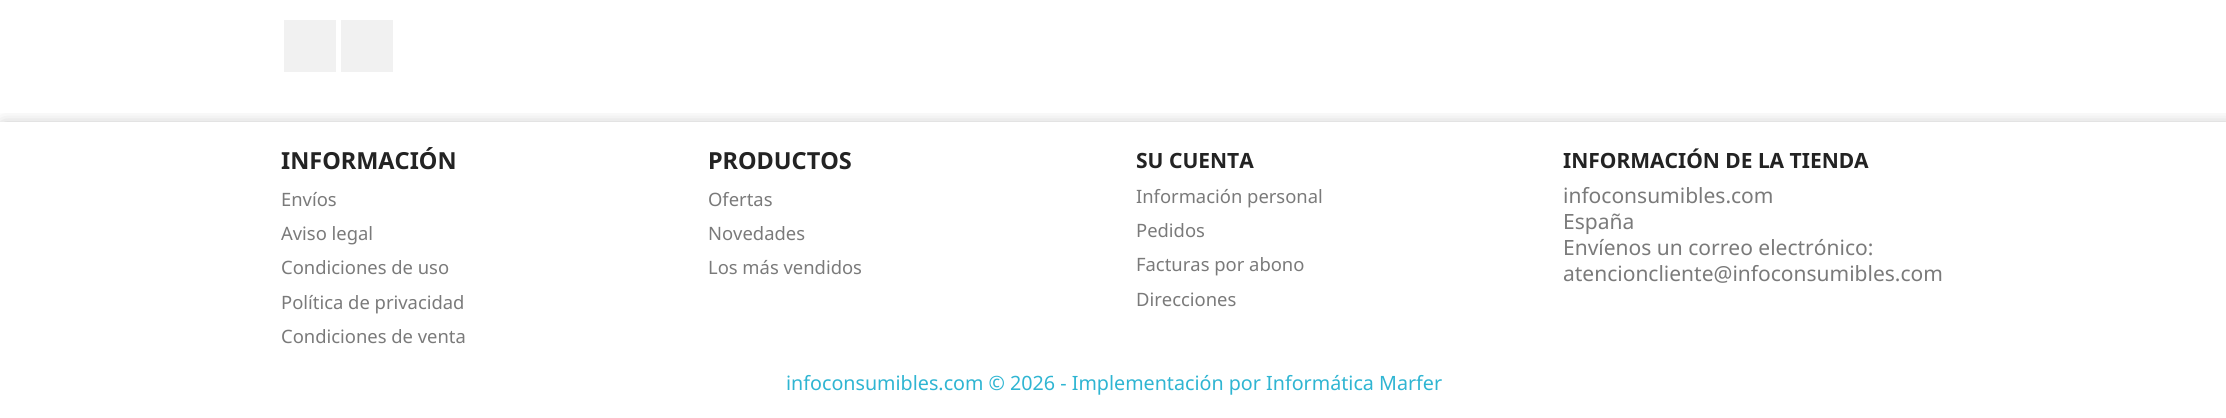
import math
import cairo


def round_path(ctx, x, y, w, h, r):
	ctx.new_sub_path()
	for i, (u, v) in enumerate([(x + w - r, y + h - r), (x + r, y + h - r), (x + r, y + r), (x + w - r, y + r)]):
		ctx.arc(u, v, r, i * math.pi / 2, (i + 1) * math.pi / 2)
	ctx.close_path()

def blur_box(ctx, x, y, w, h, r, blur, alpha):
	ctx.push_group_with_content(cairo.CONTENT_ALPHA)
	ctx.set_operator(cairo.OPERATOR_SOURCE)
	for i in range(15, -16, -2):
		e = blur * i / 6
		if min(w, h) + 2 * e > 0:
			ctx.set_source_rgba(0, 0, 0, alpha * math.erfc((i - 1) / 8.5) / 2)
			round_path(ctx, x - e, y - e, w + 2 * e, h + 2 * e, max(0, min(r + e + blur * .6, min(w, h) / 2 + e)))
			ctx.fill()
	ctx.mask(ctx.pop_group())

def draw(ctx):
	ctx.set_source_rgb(1, 1, 1)
	ctx.paint()
	ctx.set_source_rgb(0.945, 0.945, 0.945)
	ctx.rectangle(284, 20, 52, 52)
	ctx.fill()
	ctx.rectangle(341, 20, 52, 52)
	ctx.fill()
	ctx.save()
	ctx.rectangle(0, 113, 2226, 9)
	ctx.clip()
	ctx.set_source_rgb(0, 0, 0)
	blur_box(ctx, 3, 125, 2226, 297, 0, 8, 0.3)
	ctx.restore()
	ctx.select_font_face('Noto Sans', cairo.FONT_SLANT_NORMAL, cairo.FONT_WEIGHT_BOLD)
	ctx.set_font_size(23.5)
	ctx.set_source_rgb(0.137, 0.137, 0.137)
	ctx.move_to(281, 169)
	ctx.show_text('INFORMACIÓN')
	ctx.select_font_face('Noto Sans')
	ctx.set_font_size(18.4)
	ctx.set_source_rgb(0.478, 0.478, 0.478)
	for x, y, s in [
		(281, 206, 'Envíos'),
		(281, 240, 'Aviso legal'),
		(281, 274, 'Condiciones de uso'),
		(281, 309, 'Política de privacidad'),
		(281, 343, 'Condiciones de venta'),
	]:
		ctx.move_to(x, y)
		ctx.show_text(s)
	ctx.select_font_face('Noto Sans', cairo.FONT_SLANT_NORMAL, cairo.FONT_WEIGHT_BOLD)
	ctx.set_font_size(23.5)
	ctx.set_source_rgb(0.137, 0.137, 0.137)
	ctx.move_to(708, 169)
	ctx.show_text('PRODUCTOS')
	ctx.select_font_face('Noto Sans')
	ctx.set_font_size(18.4)
	ctx.set_source_rgb(0.478, 0.478, 0.478)
	for x, y, s in [
		(708, 206, 'Ofertas'),
		(708, 240, 'Novedades'),
		(708, 274, 'Los más vendidos'),
	]:
		ctx.move_to(x, y)
		ctx.show_text(s)
	ctx.select_font_face('Noto Sans', cairo.FONT_SLANT_NORMAL, cairo.FONT_WEIGHT_BOLD)
	ctx.set_font_size(21)
	ctx.set_source_rgb(0.137, 0.137, 0.137)
	ctx.move_to(1136, 168)
	ctx.show_text('SU CUENTA')
	ctx.select_font_face('Noto Sans')
	ctx.set_font_size(18.4)
	ctx.set_source_rgb(0.478, 0.478, 0.478)
	for x, y, s in [
		(1136, 203, 'Información personal'),
		(1136, 237, 'Pedidos'),
		(1136, 271, 'Facturas por abono'),
		(1136, 306, 'Direcciones'),
	]:
		ctx.move_to(x, y)
		ctx.show_text(s)
	ctx.select_font_face('Noto Sans', cairo.FONT_SLANT_NORMAL, cairo.FONT_WEIGHT_BOLD)
	ctx.set_font_size(21)
	ctx.set_source_rgb(0.137, 0.137, 0.137)
	ctx.move_to(1563, 168)
	ctx.show_text('INFORMACIÓN DE LA TIENDA')
	ctx.select_font_face('Noto Sans')
	ctx.set_source_rgb(0.478, 0.478, 0.478)
	for x, y, s in [
		(1563, 203, 'infoconsumibles.com'),
		(1563, 229, 'España'),
		(1563, 255, 'Envíenos un correo electrónico:'),
		(1563, 281, 'atencioncliente@infoconsumibles.com'),
	]:
		ctx.move_to(x, y)
		ctx.show_text(s)
	ctx.set_font_size(19.7)
	ctx.set_source_rgb(0.184, 0.71, 0.824)
	ctx.move_to(786, 390)
	ctx.show_text('infoconsumibles.com © 2026 - Implementación por Informática Marfer')


surface = cairo.ImageSurface(cairo.FORMAT_RGB24, 2226, 418)
ctx = cairo.Context(surface)
options = cairo.FontOptions()
options.set_hint_metrics(cairo.HINT_METRICS_OFF)
options.set_hint_style(cairo.HINT_STYLE_NONE)
ctx.set_font_options(options)
ctx.set_miter_limit(4)
draw(ctx)
surface.write_to_png('image.png')
